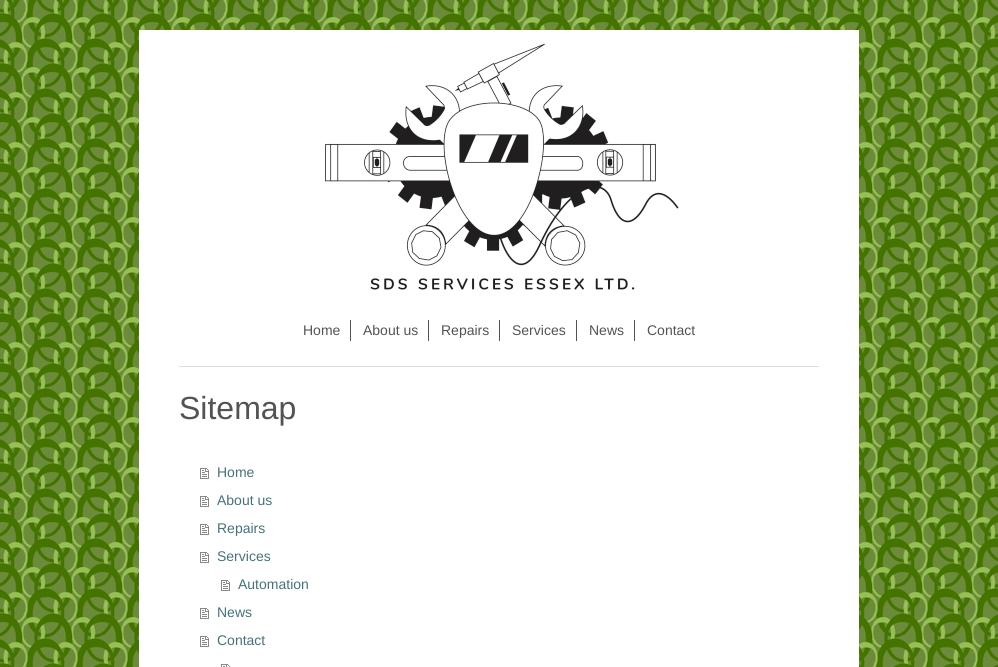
import math
import cairo


def paste(ctx, path, x, y, w, h):
	ctx.save()
	ctx.set_source_surface(cairo.ImageSurface.create_from_png(path), x, y)
	ctx.rectangle(x, y, w, h)
	ctx.fill()
	ctx.restore()

def draw(ctx):
	ctx.set_source_rgb(1, 1, 1)
	ctx.paint()
	paste(ctx, 'media/1.png', 0, 0, 998, 667)
	ctx.set_source_rgb(1, 1, 1)
	ctx.rectangle(139, 30, 720, 637)
	ctx.fill()
	paste(ctx, 'media/2.png', 325, 43, 354, 247)
	ctx.set_source_rgb(0.867, 0.867, 0.867)
	ctx.rectangle(179, 366, 640, 1)
	ctx.fill()
	ctx.set_source_rgb(0.325, 0.325, 0.325)
	ctx.rectangle(350, 320, 1, 21)
	ctx.fill()
	ctx.select_font_face('Liberation Sans')
	ctx.set_font_size(14)
	ctx.move_to(303, 335)
	ctx.show_text('Home')
	ctx.rectangle(428, 320, 1, 21)
	ctx.fill()
	ctx.move_to(363, 335)
	ctx.show_text('About us')
	ctx.rectangle(499, 320, 1, 21)
	ctx.fill()
	ctx.move_to(441, 335)
	ctx.show_text('Repairs')
	ctx.rectangle(576, 320, 1, 21)
	ctx.fill()
	ctx.move_to(512, 335)
	ctx.show_text('Services')
	ctx.rectangle(634, 320, 1, 21)
	ctx.fill()
	ctx.move_to(589, 335)
	ctx.show_text('News')
	ctx.move_to(647, 335)
	ctx.show_text('Contact')
	ctx.set_font_size(32)
	ctx.move_to(179, 419)
	ctx.show_text('Sitemap')
	paste(ctx, 'media/3.png', 200, 468, 9, 11)
	ctx.set_font_size(14)
	ctx.set_source_rgb(0.278, 0.443, 0.478)
	ctx.move_to(217, 477)
	ctx.show_text('Home')
	paste(ctx, 'media/3.png', 200, 496, 9, 11)
	ctx.move_to(217, 505)
	ctx.show_text('About us')
	paste(ctx, 'media/3.png', 200, 524, 9, 11)
	ctx.move_to(217, 533)
	ctx.show_text('Repairs')
	paste(ctx, 'media/3.png', 200, 552, 9, 11)
	ctx.move_to(217, 561)
	ctx.show_text('Services')
	paste(ctx, 'media/3.png', 221, 580, 9, 11)
	ctx.move_to(238, 589)
	ctx.show_text('Automation')
	paste(ctx, 'media/3.png', 200, 608, 9, 11)
	ctx.move_to(217, 617)
	ctx.show_text('News')
	paste(ctx, 'media/3.png', 200, 636, 9, 11)
	ctx.move_to(217, 645)
	ctx.show_text('Contact')
	paste(ctx, 'media/4.png', 221, 664, 9, 3)


surface = cairo.ImageSurface(cairo.FORMAT_RGB24, 998, 667)
ctx = cairo.Context(surface)
options = cairo.FontOptions()
options.set_hint_metrics(cairo.HINT_METRICS_OFF)
options.set_hint_style(cairo.HINT_STYLE_NONE)
ctx.set_font_options(options)
ctx.set_miter_limit(4)
draw(ctx)
surface.write_to_png('image.png')
